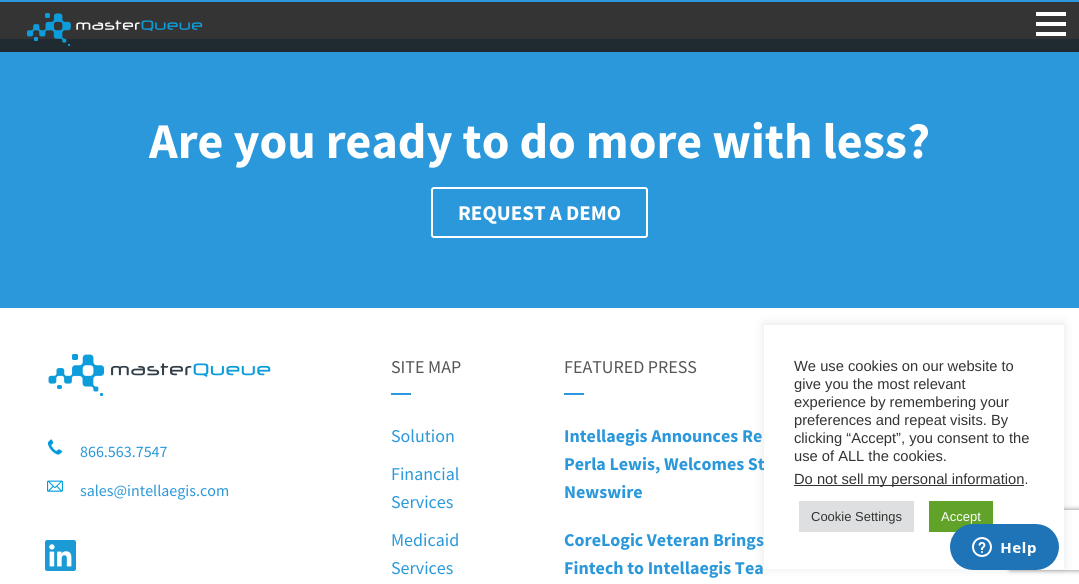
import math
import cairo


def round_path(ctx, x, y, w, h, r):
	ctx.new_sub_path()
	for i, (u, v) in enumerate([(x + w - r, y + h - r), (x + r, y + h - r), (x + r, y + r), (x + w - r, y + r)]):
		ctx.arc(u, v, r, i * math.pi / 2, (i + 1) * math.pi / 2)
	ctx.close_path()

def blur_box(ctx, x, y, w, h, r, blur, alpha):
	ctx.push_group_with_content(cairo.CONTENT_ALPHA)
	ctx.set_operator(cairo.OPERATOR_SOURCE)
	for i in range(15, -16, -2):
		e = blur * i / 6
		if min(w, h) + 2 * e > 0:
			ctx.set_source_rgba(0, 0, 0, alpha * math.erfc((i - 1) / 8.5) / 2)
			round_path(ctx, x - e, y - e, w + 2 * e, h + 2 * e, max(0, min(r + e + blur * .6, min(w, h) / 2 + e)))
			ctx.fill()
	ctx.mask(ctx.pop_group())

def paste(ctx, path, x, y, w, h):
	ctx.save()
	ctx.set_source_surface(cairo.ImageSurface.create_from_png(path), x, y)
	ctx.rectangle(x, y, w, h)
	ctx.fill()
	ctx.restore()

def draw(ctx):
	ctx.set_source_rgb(1, 1, 1)
	ctx.paint()
	ctx.set_source_rgb(0.204, 0.204, 0.204)
	ctx.rectangle(0, 2, 1079, 37)
	ctx.fill()
	ctx.set_source_rgb(0.165, 0.596, 0.855)
	ctx.rectangle(0, 0, 1079, 2)
	ctx.fill()
	ctx.set_source_rgb(0.122, 0.165, 0.192)
	ctx.rectangle(0, 39, 1079, 13)
	ctx.fill()
	paste(ctx, 'media/1.png', 26, 13, 177, 33)
	ctx.set_source_rgb(1, 1, 1)
	ctx.rectangle(1036, 22, 30, 4)
	ctx.rectangle(1036, 12, 30, 4)
	ctx.rectangle(1036, 32, 30, 4)
	ctx.fill()
	ctx.set_source_rgb(0.165, 0.596, 0.855)
	ctx.rectangle(0, 52, 1079, 256)
	ctx.fill()
	ctx.select_font_face('Source Sans Pro', cairo.FONT_SLANT_NORMAL, cairo.FONT_WEIGHT_BOLD)
	ctx.set_font_size(50)
	ctx.set_source_rgb(1, 1, 1)
	ctx.move_to(149, 158)
	ctx.show_text('Are you ready to do more with less?')
	round_path(ctx, 432, 188, 215, 49, 2)
	ctx.stroke()
	ctx.set_font_size(21)
	ctx.move_to(458, 220)
	ctx.show_text('REQUEST A DEMO')
	paste(ctx, 'media/2.png', 48, 354, 223, 42)
	paste(ctx, 'media/3.png', 47, 439, 16, 16)
	ctx.select_font_face('Source Sans Pro')
	ctx.set_font_size(16)
	ctx.set_source_rgb(0.165, 0.596, 0.855)
	ctx.move_to(80, 457)
	ctx.show_text('866.563.7547')
	paste(ctx, 'media/4.png', 47, 480, 16, 12)
	ctx.move_to(80, 496)
	ctx.show_text('sales@intellaegis.com')
	paste(ctx, 'media/5.png', 45, 540, 31, 31)
	ctx.set_font_size(18)
	ctx.set_source_rgb(0.333, 0.333, 0.333)
	ctx.move_to(391, 373)
	ctx.show_text('SITE MAP')
	ctx.set_source_rgb(0.165, 0.596, 0.855)
	ctx.rectangle(391, 393, 20, 2)
	ctx.fill()
	for x, y, s in [
		(391, 442, 'Solution'),
		(391, 480, 'Financial'),
		(391, 508, 'Services'),
		(391, 546, 'Medicaid'),
		(391, 574, 'Services'),
	]:
		ctx.move_to(x, y)
		ctx.show_text(s)
	ctx.set_source_rgb(0.333, 0.333, 0.333)
	ctx.move_to(564, 373)
	ctx.show_text('FEATURED PRESS')
	ctx.set_source_rgb(0.165, 0.596, 0.855)
	ctx.rectangle(564, 393, 20, 2)
	ctx.fill()
	ctx.select_font_face('Source Sans Pro', cairo.FONT_SLANT_NORMAL, cairo.FONT_WEIGHT_BOLD)
	for x, y, s in [
		(564, 442, 'Intellaegis Announces Re'),
		(564, 470, 'Perla Lewis, Welcomes St'),
		(564, 498, 'Newswire'),
		(564, 546, 'CoreLogic Veteran Brings'),
		(564, 574, 'Fintech to Intellaegis Tea'),
	]:
		ctx.move_to(x, y)
		ctx.show_text(s)
	ctx.set_source_rgb(0.675, 0.671, 0.671)
	blur_box(ctx, 764, 324, 300, 244, 0, 5, 0.3)
	ctx.save()
	ctx.set_fill_rule(cairo.FILL_RULE_EVEN_ODD)
	ctx.new_path()
	ctx.move_to(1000, 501)
	ctx.line_to(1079, 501)
	ctx.line_to(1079, 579)
	ctx.line_to(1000, 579)
	ctx.close_path()
	ctx.move_to(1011, 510)
	ctx.line_to(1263, 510)
	ctx.curve_to(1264, 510, 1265, 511, 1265, 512)
	ctx.line_to(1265, 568)
	ctx.curve_to(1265, 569, 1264, 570, 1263, 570)
	ctx.line_to(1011, 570)
	ctx.curve_to(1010, 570, 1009, 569, 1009, 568)
	ctx.line_to(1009, 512)
	ctx.curve_to(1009, 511, 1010, 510, 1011, 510)
	ctx.close_path()
	ctx.clip()
	ctx.set_source_rgb(0.502, 0.502, 0.502)
	blur_box(ctx, 1009, 510, 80, 60, 2, 2.5, 1)
	ctx.restore()
	ctx.set_source_rgb(1, 1, 1)
	ctx.rectangle(764, 325, 300, 244)
	ctx.fill()
	ctx.select_font_face('Liberation Sans')
	ctx.set_font_size(14.7)
	ctx.set_source_rgb(0.2, 0.2, 0.2)
	for x, y, s in [
		(794, 371, 'We use cookies on our website to'),
		(794, 389, 'give you the most relevant'),
		(794, 407, 'experience by remembering your'),
		(794, 425, 'preferences and repeat visits. By'),
		(794, 443, 'clicking “Accept”, you consent to the'),
		(794, 461, 'use of ALL the cookies.'),
	]:
		ctx.move_to(x, y)
		ctx.show_text(s)
	ctx.rectangle(794, 485, 230, 1)
	ctx.fill()
	ctx.move_to(794, 484)
	ctx.show_text('Do not sell my personal information.')
	ctx.set_source_rgb(0.871, 0.875, 0.878)
	ctx.rectangle(799, 501, 115, 31)
	ctx.fill()
	ctx.set_font_size(13)
	ctx.set_source_rgb(0.2, 0.2, 0.2)
	ctx.move_to(811, 521)
	ctx.show_text('Cookie Settings')
	ctx.set_source_rgb(0.38, 0.635, 0.161)
	ctx.rectangle(929, 501, 64, 31)
	ctx.fill()
	ctx.set_source_rgb(1, 1, 1)
	ctx.move_to(941, 521)
	ctx.show_text('Accept')
	paste(ctx, 'media/6.png', 950, 524, 109, 46)


surface = cairo.ImageSurface(cairo.FORMAT_RGB24, 1079, 584)
ctx = cairo.Context(surface)
options = cairo.FontOptions()
options.set_hint_metrics(cairo.HINT_METRICS_OFF)
options.set_hint_style(cairo.HINT_STYLE_NONE)
ctx.set_font_options(options)
ctx.set_miter_limit(4)
draw(ctx)
surface.write_to_png('image.png')
